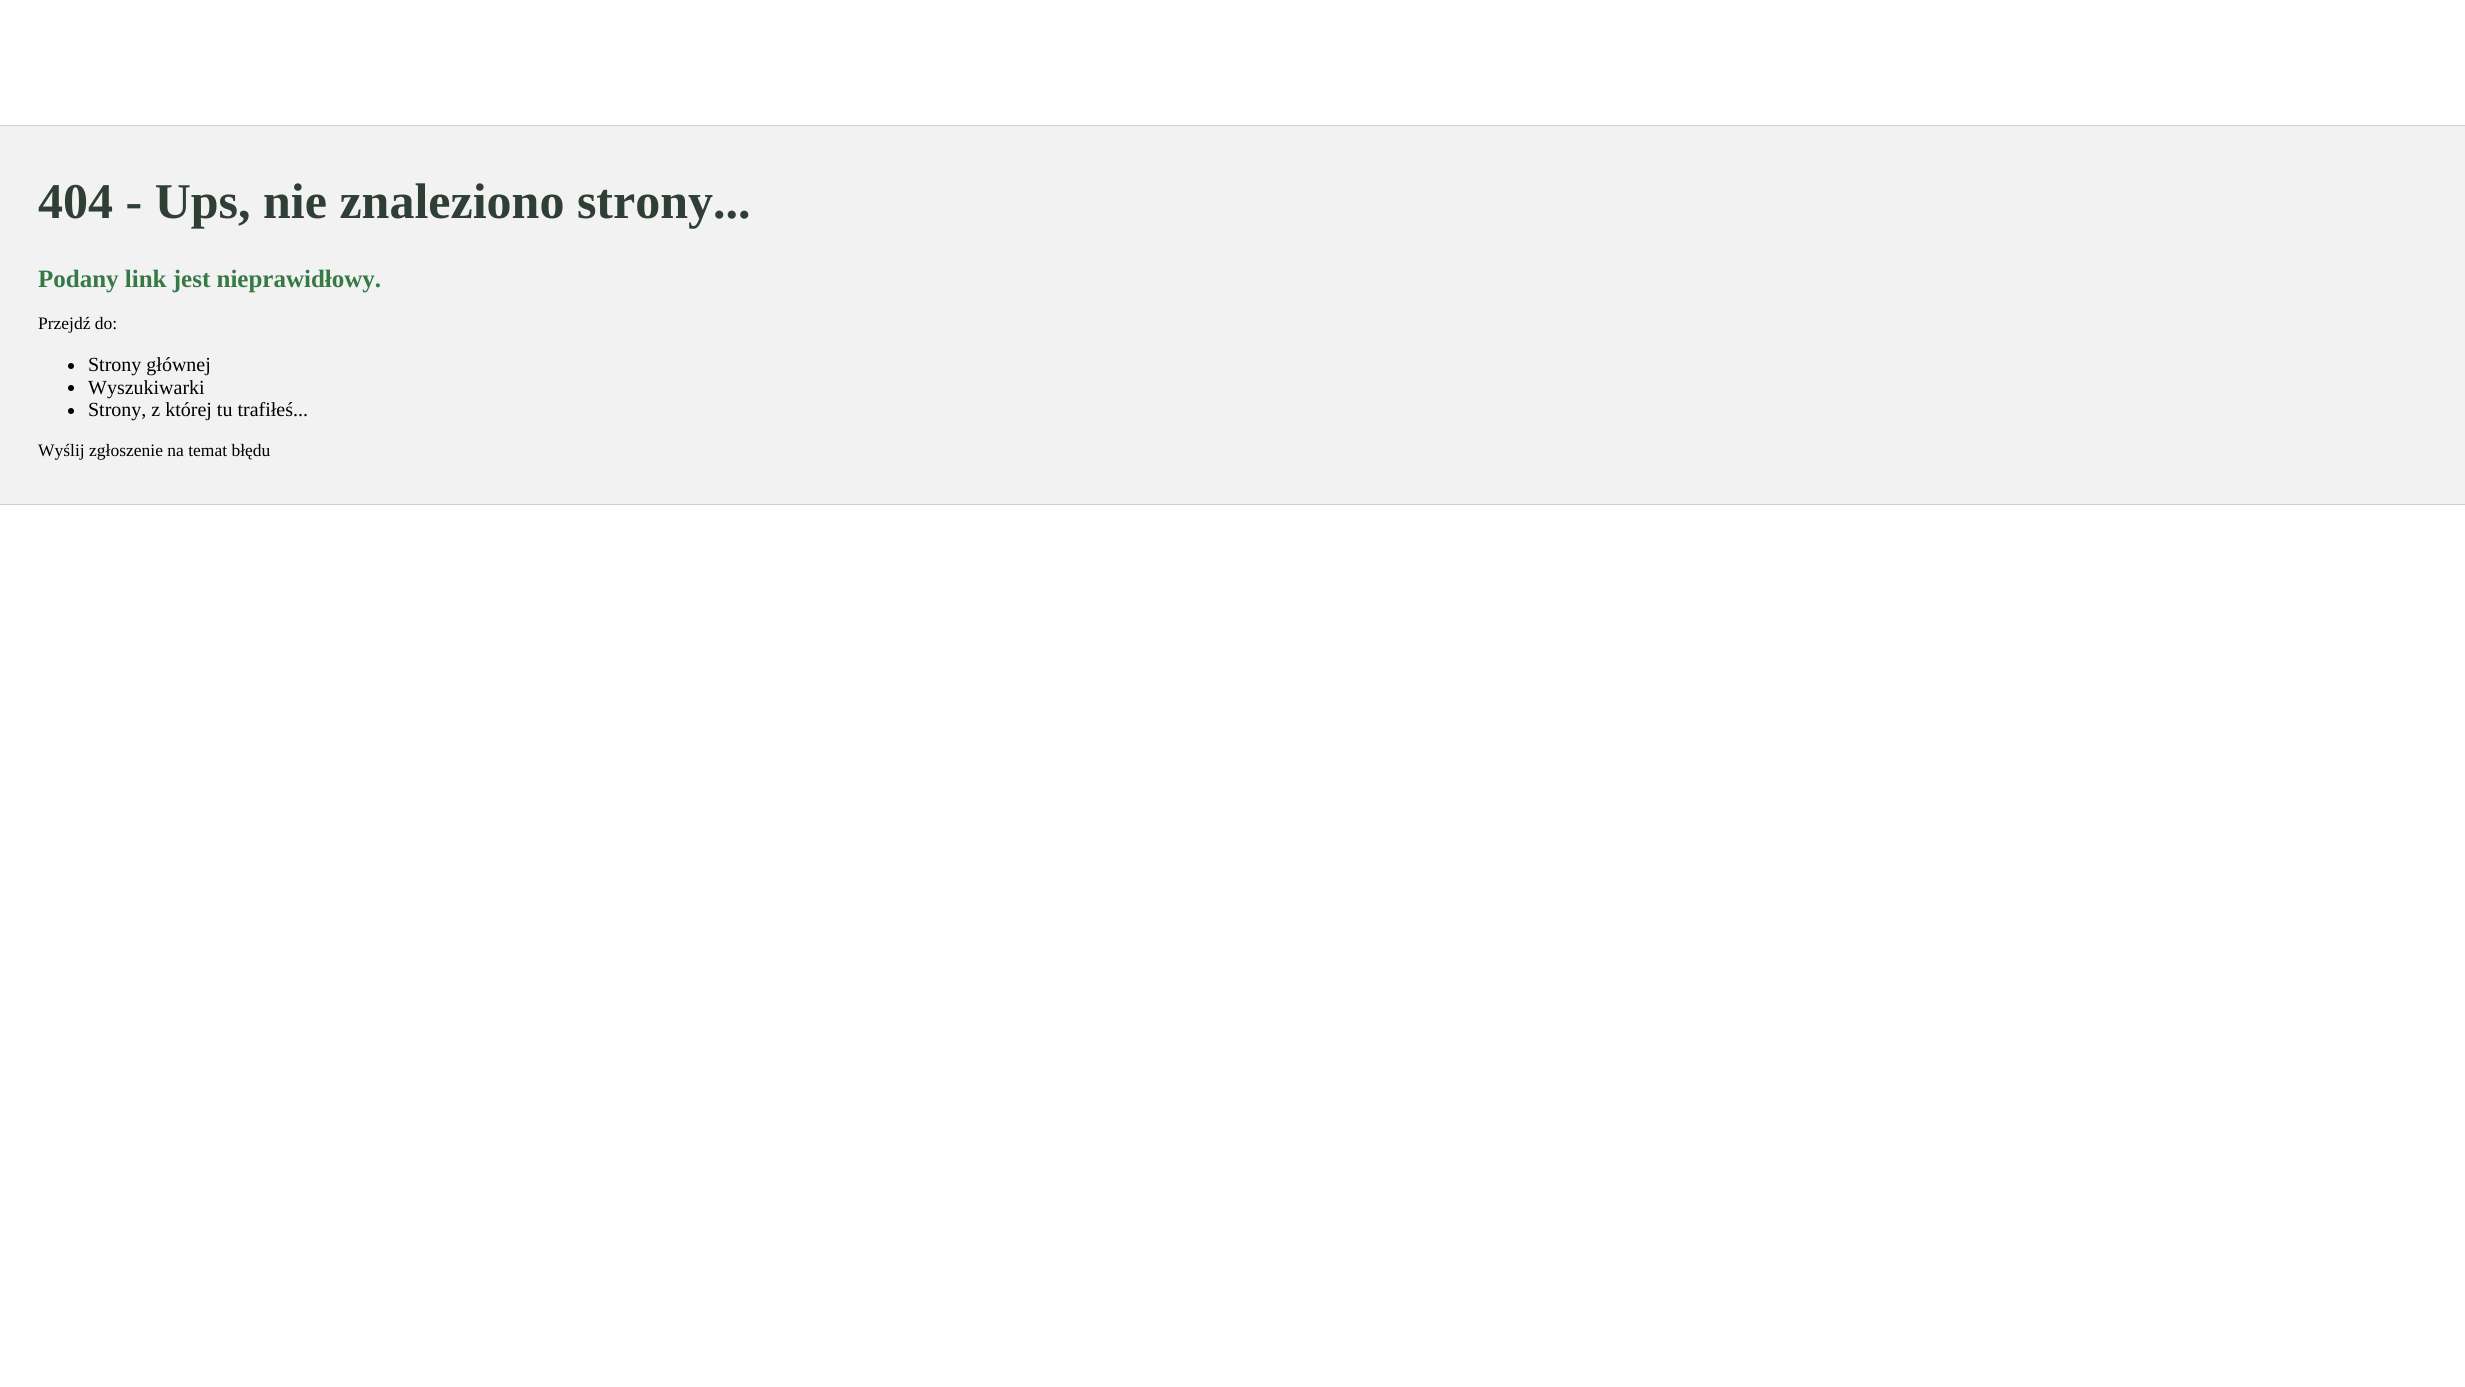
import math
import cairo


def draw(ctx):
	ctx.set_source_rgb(1, 1, 1)
	ctx.paint()
	ctx.set_source_rgb(0.949, 0.949, 0.949)
	ctx.rectangle(0, 126, 2465, 378)
	ctx.fill()
	ctx.set_source_rgb(0.812, 0.812, 0.812)
	ctx.rectangle(0, 125, 2465, 1)
	ctx.rectangle(0, 504, 2465, 1)
	ctx.fill()
	ctx.select_font_face('Liberation Serif', cairo.FONT_SLANT_NORMAL, cairo.FONT_WEIGHT_BOLD)
	ctx.set_font_size(50)
	ctx.set_source_rgb(0.184, 0.247, 0.208)
	ctx.move_to(38, 218)
	ctx.show_text('404 - Ups, nie znaleziono strony...')
	ctx.set_font_size(25)
	ctx.set_source_rgb(0.212, 0.475, 0.271)
	ctx.move_to(38, 287)
	ctx.show_text('Podany link jest nieprawidłowy.')
	ctx.select_font_face('Liberation Serif')
	ctx.set_font_size(17.5)
	ctx.set_source_rgb(0, 0, 0)
	ctx.move_to(38, 329)
	ctx.show_text('Przejdź do:')
	ctx.new_path()
	ctx.arc(71, 366, 3, 0, 2 * math.pi)
	ctx.fill()
	ctx.set_font_size(20)
	ctx.move_to(88, 371)
	ctx.show_text('Strony głównej')
	ctx.new_path()
	ctx.arc(71, 388, 3, 0, 2 * math.pi)
	ctx.fill()
	ctx.move_to(88, 394)
	ctx.show_text('Wyszukiwarki')
	ctx.new_path()
	ctx.arc(71, 411, 3, 0, 2 * math.pi)
	ctx.fill()
	ctx.move_to(88, 416)
	ctx.show_text('Strony, z której tu trafiłeś...')
	ctx.set_font_size(17.5)
	ctx.move_to(38, 456)
	ctx.show_text('Wyślij zgłoszenie na temat błędu')


surface = cairo.ImageSurface(cairo.FORMAT_RGB24, 2465, 1387)
ctx = cairo.Context(surface)
options = cairo.FontOptions()
options.set_hint_metrics(cairo.HINT_METRICS_OFF)
options.set_hint_style(cairo.HINT_STYLE_NONE)
ctx.set_font_options(options)
ctx.set_miter_limit(4)
draw(ctx)
surface.write_to_png('image.png')
